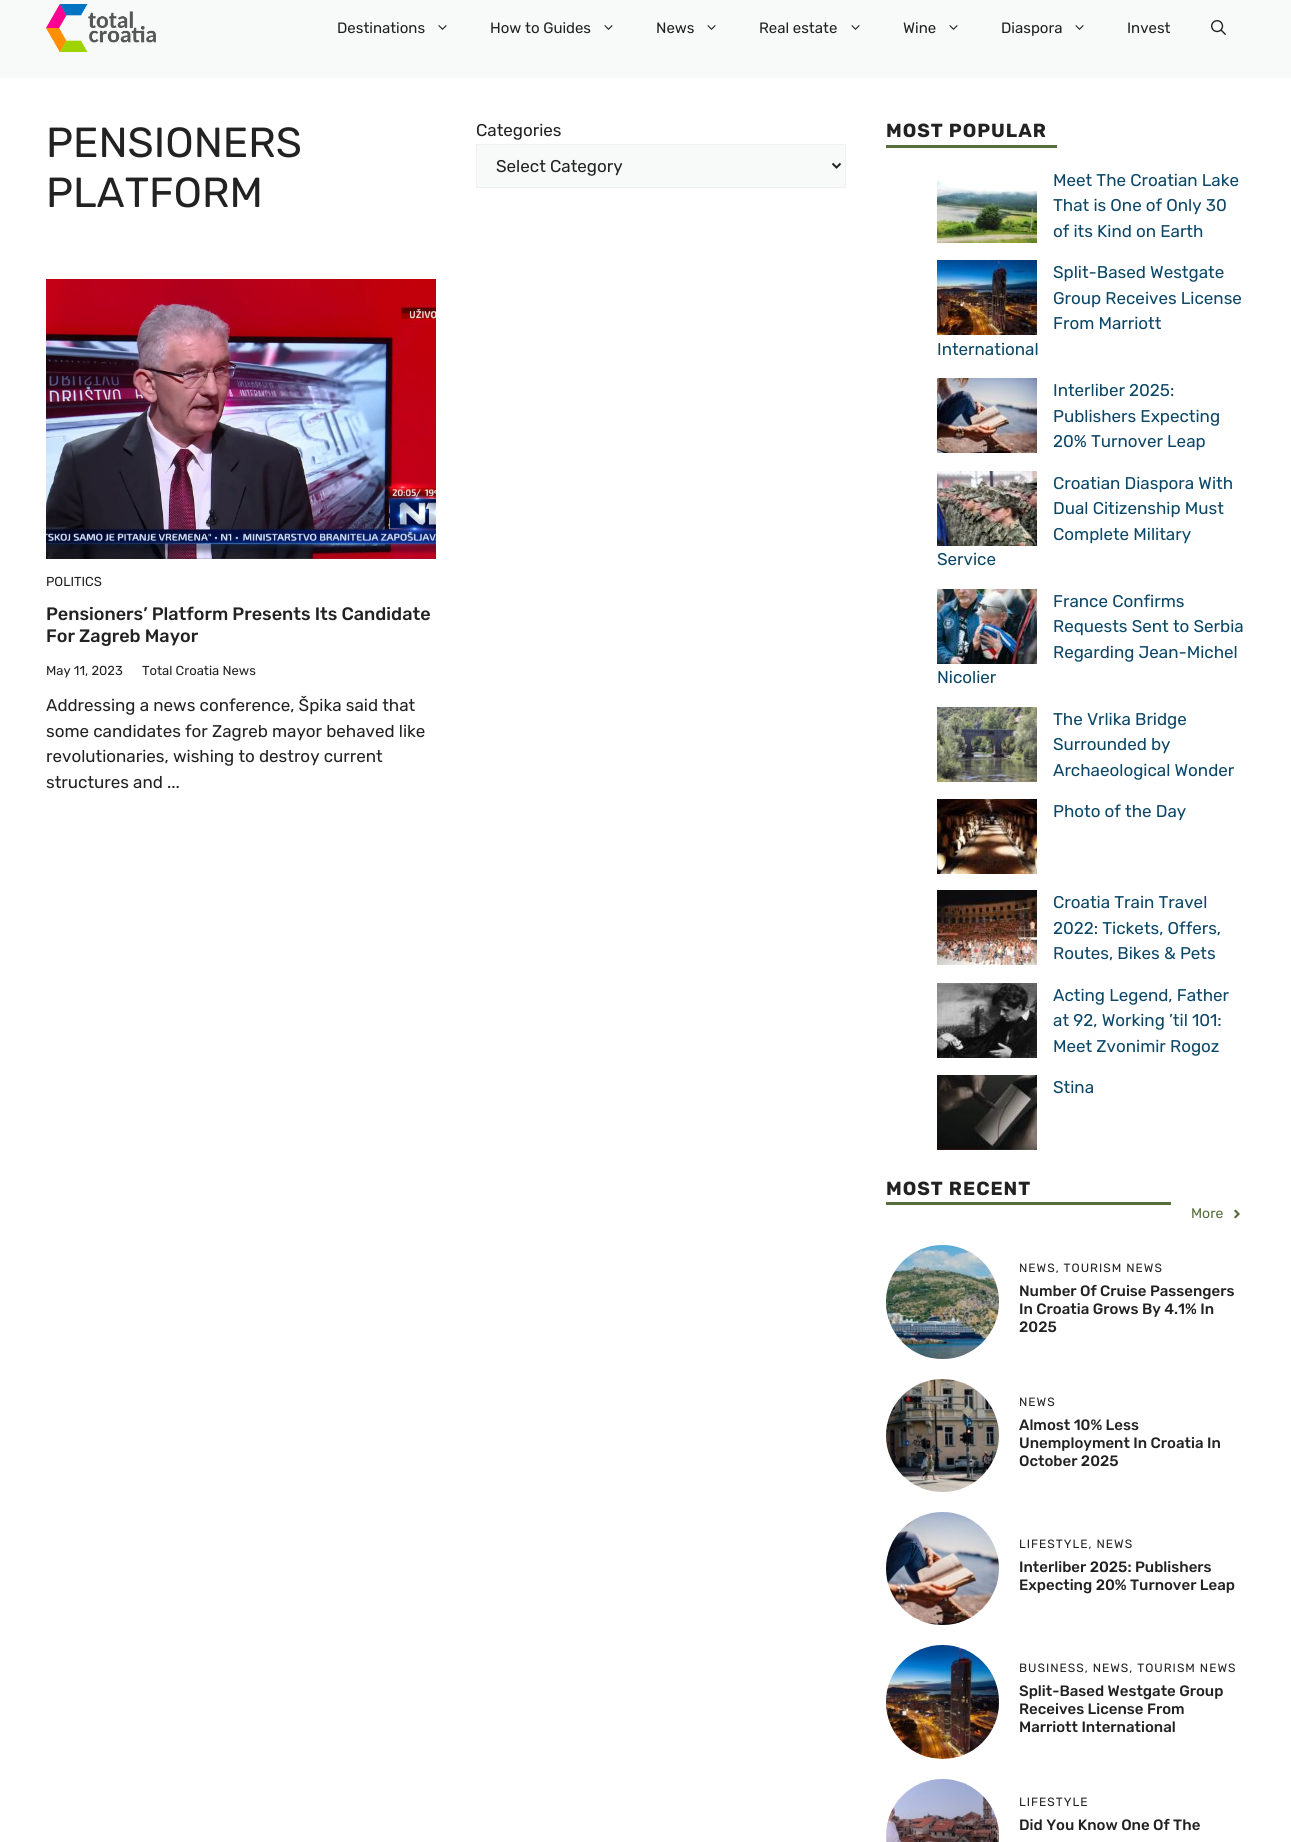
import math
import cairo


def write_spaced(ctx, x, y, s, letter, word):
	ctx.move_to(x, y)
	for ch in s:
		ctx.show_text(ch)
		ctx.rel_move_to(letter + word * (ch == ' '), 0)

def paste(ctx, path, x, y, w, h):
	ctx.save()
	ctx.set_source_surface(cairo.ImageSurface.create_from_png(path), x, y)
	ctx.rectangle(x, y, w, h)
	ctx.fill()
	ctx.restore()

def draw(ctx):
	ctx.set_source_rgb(1, 1, 1)
	ctx.paint()
	ctx.set_source_rgb(0.969, 0.973, 0.976)
	ctx.rectangle(0, 0, 1291, 78)
	ctx.fill()
	paste(ctx, 'media/1.png', 46, 4, 110, 48)
	ctx.select_font_face('Rubik')
	ctx.set_font_size(15)
	ctx.set_source_rgb(0.133, 0.133, 0.133)
	ctx.move_to(337, 33)
	ctx.show_text('Destinations')
	paste(ctx, 'media/2.png', 438, 25, 9, 5)
	ctx.move_to(490, 33)
	ctx.show_text('How to Guides')
	paste(ctx, 'media/2.png', 604, 25, 9, 5)
	ctx.move_to(656, 33)
	ctx.show_text('News')
	paste(ctx, 'media/2.png', 707, 25, 9, 5)
	ctx.move_to(759, 33)
	ctx.show_text('Real estate')
	paste(ctx, 'media/2.png', 851, 25, 9, 5)
	ctx.move_to(903, 33)
	ctx.show_text('Wine')
	paste(ctx, 'media/2.png', 949, 25, 9, 5)
	ctx.move_to(1001, 33)
	ctx.show_text('Diaspora')
	paste(ctx, 'media/2.png', 1075, 25, 9, 5)
	ctx.move_to(1127, 33)
	ctx.show_text('Invest')
	paste(ctx, 'media/3.png', 1211, 20, 15, 15)
	ctx.set_font_size(42)
	ctx.move_to(46, 157)
	ctx.show_text('PENSIONERS')
	ctx.move_to(46, 207)
	ctx.show_text('PLATFORM')
	ctx.set_font_size(17)
	ctx.move_to(476, 136)
	ctx.show_text('Categories')
	ctx.set_source_rgb(0.969, 0.973, 0.976)
	ctx.rectangle(476.5, 144.5, 369, 43)
	ctx.fill_preserve()
	ctx.set_source_rgb(0.941, 0.941, 0.941)
	ctx.set_line_width(1)
	ctx.stroke()
	ctx.new_path()
	ctx.move_to(832.5, 163.5)
	ctx.line_to(836.5, 167.5)
	ctx.line_to(840.5, 163.5)
	ctx.set_source_rgb(0.133, 0.133, 0.133)
	ctx.set_line_width(2)
	ctx.stroke()
	ctx.move_to(496, 172)
	ctx.show_text('Select Category')
	paste(ctx, 'media/4.png', 46, 279, 390, 280)
	ctx.set_font_size(13)
	ctx.move_to(46, 586)
	ctx.show_text('POLITICS')
	ctx.select_font_face('Rubik Medium')
	ctx.set_font_size(18)
	ctx.move_to(46, 620)
	ctx.show_text('Pensioners’ Platform Presents Its Candidate')
	ctx.move_to(46, 642)
	ctx.show_text('For Zagreb Mayor')
	ctx.select_font_face('Rubik')
	ctx.set_font_size(13)
	ctx.move_to(46, 675)
	ctx.show_text('May 11, 2023')
	ctx.move_to(142, 675)
	ctx.show_text('Total Croatia News')
	ctx.set_font_size(17)
	for x, y, s in [
		(46, 711, 'Addressing a news conference, Špika said that'),
		(46, 737, 'some candidates for Zagreb mayor behaved like'),
		(46, 762, 'revolutionaries, wishing to destroy current'),
		(46, 788, 'structures and ...'),
	]:
		ctx.move_to(x, y)
		ctx.show_text(s)
	ctx.select_font_face('Rubik', cairo.FONT_SLANT_NORMAL, cairo.FONT_WEIGHT_BOLD)
	ctx.set_font_size(19)
	write_spaced(ctx, 886, 137, 'MOST POPULAR', 1, 0)
	ctx.set_source_rgb(0.337, 0.431, 0.239)
	ctx.rectangle(886, 145, 171, 3)
	ctx.fill()
	paste(ctx, 'media/5.png', 937, 179, 100, 64)
	ctx.select_font_face('Rubik')
	ctx.set_font_size(17)
	ctx.set_source_rgb(0.047, 0.278, 0.404)
	for x, y, s in [
		(1053, 186, 'Meet The Croatian Lake'),
		(1053, 211, 'That is One of Only 30'),
		(1053, 237, 'of its Kind on Earth'),
	]:
		ctx.move_to(x, y)
		ctx.show_text(s)
	paste(ctx, 'media/6.png', 937, 260, 100, 75)
	for x, y, s in [
		(1053, 278, 'Split-Based Westgate'),
		(1053, 304, 'Group Receives License'),
		(1053, 329, 'From Marriott'),
		(937, 355, 'International'),
	]:
		ctx.move_to(x, y)
		ctx.show_text(s)
	paste(ctx, 'media/7.png', 937, 378, 100, 75)
	for x, y, s in [
		(1053, 396, 'Interliber 2025:'),
		(1053, 422, 'Publishers Expecting'),
		(1053, 447, '20% Turnover Leap'),
	]:
		ctx.move_to(x, y)
		ctx.show_text(s)
	paste(ctx, 'media/8.png', 937, 471, 100, 75)
	for x, y, s in [
		(1053, 489, 'Croatian Diaspora With'),
		(1053, 514, 'Dual Citizenship Must'),
		(1053, 540, 'Complete Military'),
		(937, 565, 'Service'),
	]:
		ctx.move_to(x, y)
		ctx.show_text(s)
	paste(ctx, 'media/9.png', 937, 589, 100, 75)
	for x, y, s in [
		(1053, 607, 'France Confirms'),
		(1053, 632, 'Requests Sent to Serbia'),
		(1053, 658, 'Regarding Jean-Michel'),
		(937, 683, 'Nicolier'),
	]:
		ctx.move_to(x, y)
		ctx.show_text(s)
	paste(ctx, 'media/10.png', 937, 707, 100, 75)
	for x, y, s in [
		(1053, 725, 'The Vrlika Bridge'),
		(1053, 750, 'Surrounded by'),
		(1053, 776, 'Archaeological Wonder'),
	]:
		ctx.move_to(x, y)
		ctx.show_text(s)
	paste(ctx, 'media/11.png', 937, 799, 100, 75)
	ctx.move_to(1053, 817)
	ctx.show_text('Photo of the Day')
	paste(ctx, 'media/12.png', 937, 890, 100, 75)
	for x, y, s in [
		(1053, 908, 'Croatia Train Travel'),
		(1053, 934, '2022: Tickets, Offers,'),
		(1053, 959, 'Routes, Bikes & Pets'),
	]:
		ctx.move_to(x, y)
		ctx.show_text(s)
	paste(ctx, 'media/13.png', 937, 983, 100, 75)
	for x, y, s in [
		(1053, 1001, 'Acting Legend, Father'),
		(1053, 1026, 'at 92, Working ’til 101:'),
		(1053, 1052, 'Meet Zvonimir Rogoz'),
	]:
		ctx.move_to(x, y)
		ctx.show_text(s)
	paste(ctx, 'media/14.png', 937, 1075, 100, 75)
	ctx.move_to(1053, 1093)
	ctx.show_text('Stina')
	ctx.select_font_face('Rubik', cairo.FONT_SLANT_NORMAL, cairo.FONT_WEIGHT_BOLD)
	ctx.set_font_size(19)
	ctx.set_source_rgb(0.133, 0.133, 0.133)
	write_spaced(ctx, 886, 1195, 'MOST RECENT', 1, 0)
	ctx.set_source_rgb(0.337, 0.431, 0.239)
	ctx.rectangle(886, 1202, 285, 3)
	ctx.fill()
	ctx.select_font_face('Rubik')
	ctx.set_font_size(14)
	ctx.move_to(1191, 1218)
	ctx.show_text('More')
	paste(ctx, 'media/15.png', 1234, 1209, 6, 10)
	paste(ctx, 'media/16.png', 886, 1245, 113, 114)
	ctx.set_font_size(12)
	ctx.set_source_rgb(0.133, 0.133, 0.133)
	write_spaced(ctx, 1019, 1272, 'NEWS, TOURISM NEWS', 1, 0)
	ctx.select_font_face('Rubik Medium')
	ctx.set_font_size(15)
	for x, y, s in [
		(1019, 1296, 'Number Of Cruise Passengers'),
		(1019, 1314, 'In Croatia Grows By 4.1% In'),
		(1019, 1332, '2025'),
	]:
		ctx.move_to(x, y)
		ctx.show_text(s)
	paste(ctx, 'media/17.png', 886, 1379, 113, 113)
	ctx.select_font_face('Rubik')
	ctx.set_font_size(12)
	write_spaced(ctx, 1019, 1406, 'NEWS', 1, 0)
	ctx.select_font_face('Rubik Medium')
	ctx.set_font_size(15)
	for x, y, s in [
		(1019, 1430, 'Almost 10% Less'),
		(1019, 1448, 'Unemployment In Croatia In'),
		(1019, 1466, 'October 2025'),
	]:
		ctx.move_to(x, y)
		ctx.show_text(s)
	paste(ctx, 'media/18.png', 886, 1512, 113, 113)
	ctx.select_font_face('Rubik')
	ctx.set_font_size(12)
	write_spaced(ctx, 1019, 1548, 'LIFESTYLE, NEWS', 1, 0)
	ctx.select_font_face('Rubik Medium')
	ctx.set_font_size(15)
	ctx.move_to(1019, 1572)
	ctx.show_text('Interliber 2025: Publishers')
	ctx.move_to(1019, 1590)
	ctx.show_text('Expecting 20% Turnover Leap')
	paste(ctx, 'media/19.png', 886, 1645, 113, 114)
	ctx.select_font_face('Rubik')
	ctx.set_font_size(12)
	write_spaced(ctx, 1019, 1672, 'BUSINESS, NEWS, TOURISM NEWS', 1, 0)
	ctx.select_font_face('Rubik Medium')
	ctx.set_font_size(15)
	for x, y, s in [
		(1019, 1696, 'Split-Based Westgate Group'),
		(1019, 1714, 'Receives License From'),
		(1019, 1732, 'Marriott International'),
	]:
		ctx.move_to(x, y)
		ctx.show_text(s)
	paste(ctx, 'media/20.png', 886, 1779, 113, 63)
	ctx.select_font_face('Rubik')
	ctx.set_font_size(12)
	write_spaced(ctx, 1019, 1806, 'LIFESTYLE', 1, 0)
	ctx.select_font_face('Rubik Medium')
	ctx.set_font_size(15)
	ctx.move_to(1019, 1830)
	ctx.show_text('Did You Know One Of The')


surface = cairo.ImageSurface(cairo.FORMAT_RGB24, 1291, 1842)
ctx = cairo.Context(surface)
options = cairo.FontOptions()
options.set_hint_metrics(cairo.HINT_METRICS_OFF)
options.set_hint_style(cairo.HINT_STYLE_NONE)
ctx.set_font_options(options)
ctx.set_miter_limit(4)
draw(ctx)
surface.write_to_png('image.png')
